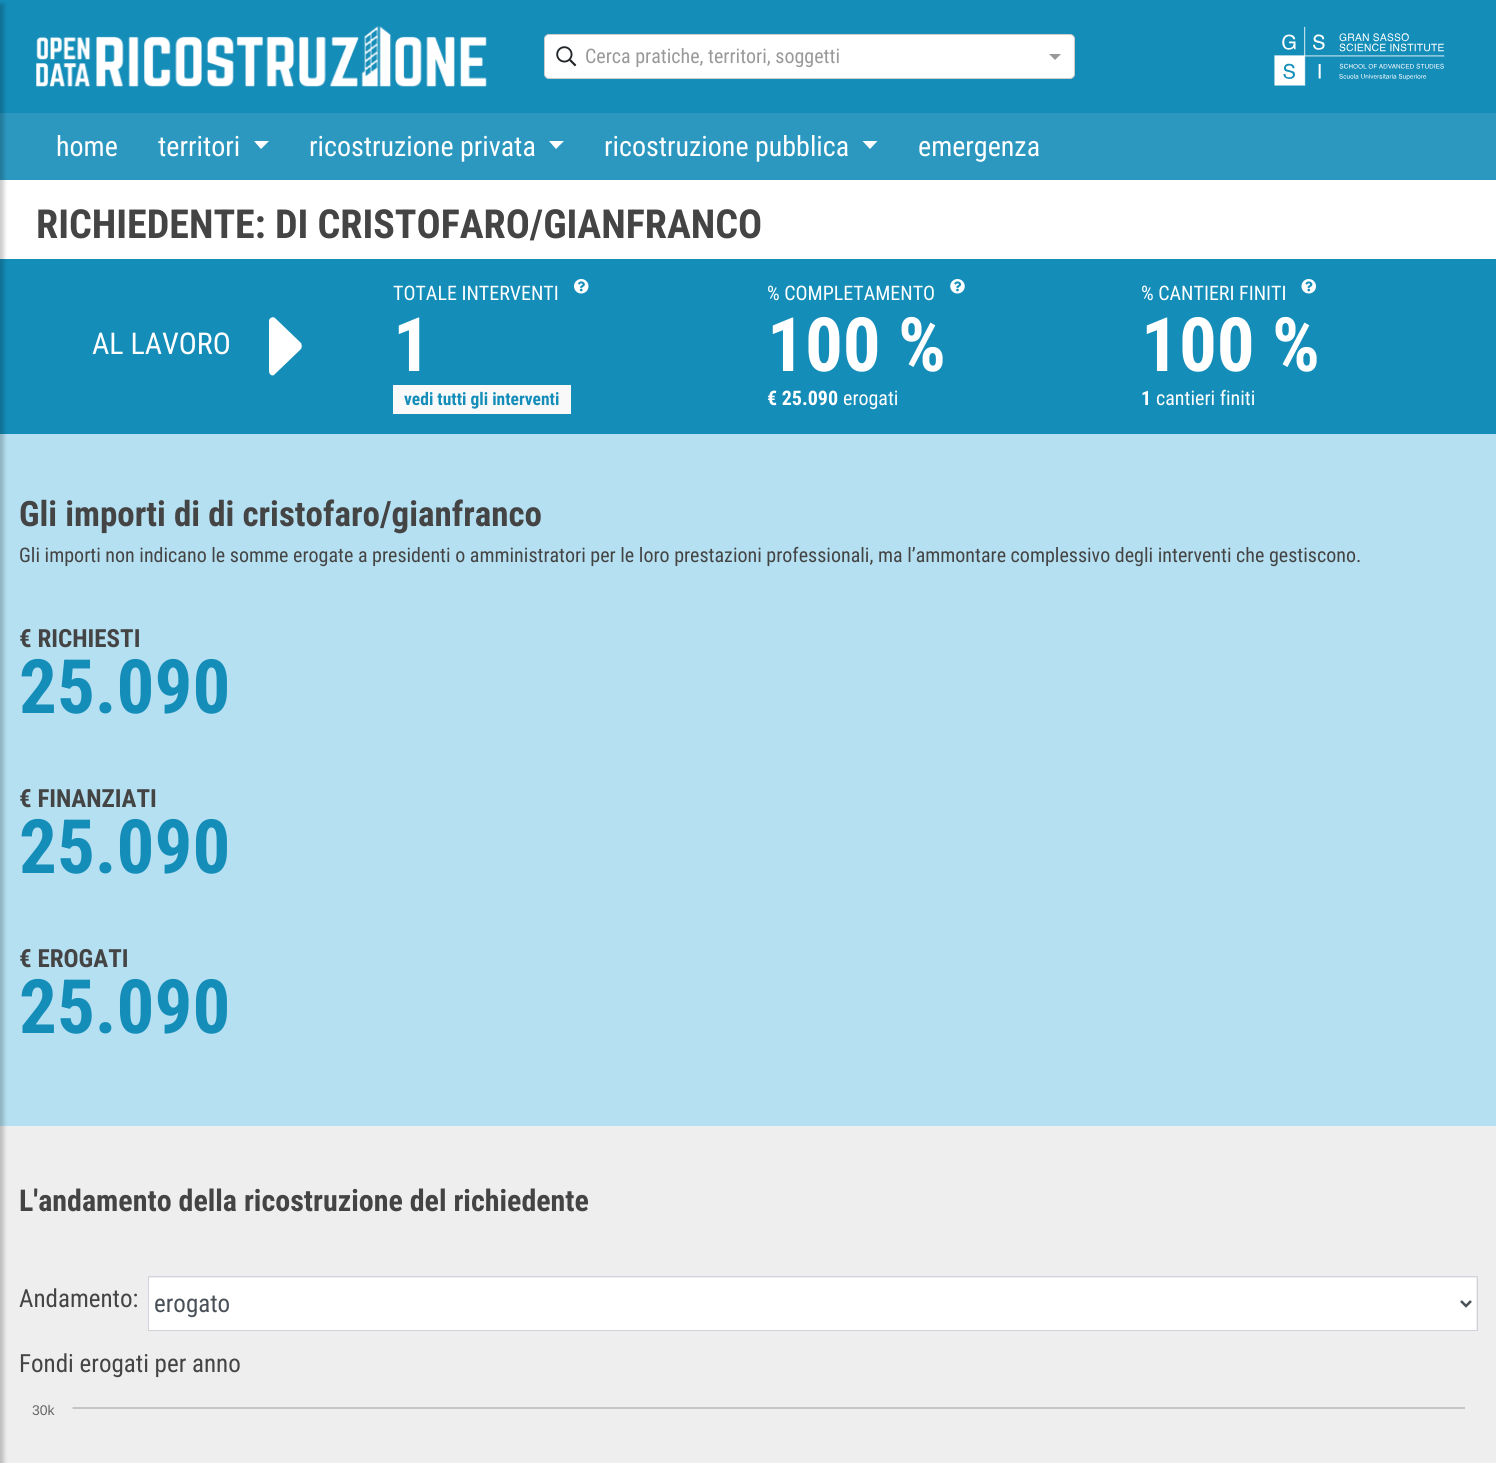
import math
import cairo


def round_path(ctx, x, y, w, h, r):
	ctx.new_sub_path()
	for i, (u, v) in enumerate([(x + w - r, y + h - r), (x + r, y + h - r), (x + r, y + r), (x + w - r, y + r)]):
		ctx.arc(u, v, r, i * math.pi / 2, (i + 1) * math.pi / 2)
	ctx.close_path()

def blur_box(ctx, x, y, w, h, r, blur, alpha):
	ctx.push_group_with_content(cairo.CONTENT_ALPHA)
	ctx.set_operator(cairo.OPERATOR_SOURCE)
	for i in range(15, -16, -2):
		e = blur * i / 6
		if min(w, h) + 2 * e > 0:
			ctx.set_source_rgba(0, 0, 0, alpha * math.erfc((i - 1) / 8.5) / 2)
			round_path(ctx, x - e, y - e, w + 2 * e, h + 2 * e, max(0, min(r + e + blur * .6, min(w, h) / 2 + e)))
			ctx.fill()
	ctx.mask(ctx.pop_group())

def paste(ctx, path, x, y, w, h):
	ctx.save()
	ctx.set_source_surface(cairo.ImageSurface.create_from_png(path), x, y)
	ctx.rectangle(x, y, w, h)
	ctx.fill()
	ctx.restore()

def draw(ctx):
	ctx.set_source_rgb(1, 1, 1)
	ctx.paint()
	ctx.set_source_rgb(0.082, 0.553, 0.725)
	ctx.rectangle(0, 0, 1496, 113)
	ctx.fill()
	paste(ctx, 'media/1.png', 36, 26, 451, 61)
	ctx.set_source_rgb(1, 1, 1)
	round_path(ctx, 544.5, 34.5, 530, 44, 4.5)
	ctx.fill_preserve()
	ctx.set_source_rgb(0.8, 0.8, 0.8)
	ctx.set_line_width(1)
	ctx.stroke()
	paste(ctx, 'media/2.png', 556, 46, 21, 21)
	ctx.select_font_face('Roboto Condensed')
	ctx.set_font_size(20)
	ctx.set_source_rgb(0.6, 0.6, 0.6)
	ctx.move_to(585, 63)
	ctx.show_text('Cerca pratiche, territori, soggetti')
	ctx.new_path()
	ctx.move_to(1049, 54)
	ctx.line_to(1061, 54)
	ctx.line_to(1055, 60)
	ctx.close_path()
	ctx.fill()
	paste(ctx, 'media/3.png', 1274, 26, 171, 60)
	ctx.set_source_rgb(0.173, 0.596, 0.753)
	ctx.rectangle(0, 113, 1496, 67)
	ctx.fill()
	ctx.set_source_rgb(0.082, 0.553, 0.725)
	ctx.rectangle(0, 259, 1496, 175)
	ctx.fill()
	ctx.set_source_rgb(0.71, 0.878, 0.945)
	ctx.rectangle(0, 434, 1496, 692)
	ctx.fill()
	ctx.set_source_rgb(0.937, 0.933, 0.933)
	ctx.rectangle(0, 1126, 1496, 337)
	ctx.fill()
	ctx.set_source_rgb(0, 0, 0)
	blur_box(ctx, -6, 4, 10, 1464, 0, 2, 0.2)
	ctx.set_font_size(28)
	ctx.set_source_rgb(1, 1, 1)
	ctx.move_to(56, 156)
	ctx.show_text('home')
	ctx.move_to(158, 156)
	ctx.show_text('territori')
	ctx.new_path()
	ctx.move_to(254, 141)
	ctx.line_to(269, 141)
	ctx.line_to(261, 149)
	ctx.close_path()
	ctx.fill()
	ctx.move_to(309, 156)
	ctx.show_text('ricostruzione privata')
	ctx.new_path()
	ctx.move_to(549, 141)
	ctx.line_to(564, 141)
	ctx.line_to(556, 149)
	ctx.close_path()
	ctx.fill()
	ctx.move_to(604, 156)
	ctx.show_text('ricostruzione pubblica')
	ctx.new_path()
	ctx.move_to(862.5, 141)
	ctx.line_to(877.5, 141)
	ctx.line_to(870, 149)
	ctx.close_path()
	ctx.fill()
	ctx.move_to(918, 156)
	ctx.show_text('emergenza')
	ctx.select_font_face('Roboto Condensed', cairo.FONT_SLANT_NORMAL, cairo.FONT_WEIGHT_BOLD)
	ctx.set_font_size(40)
	ctx.set_source_rgb(0.267, 0.267, 0.267)
	ctx.move_to(36, 238)
	ctx.show_text('RICHIEDENTE: DI CRISTOFARO/GIANFRANCO')
	ctx.select_font_face('Roboto Condensed')
	ctx.set_font_size(30)
	ctx.set_source_rgb(1, 1, 1)
	ctx.move_to(92, 354)
	ctx.show_text('AL LAVORO')
	ctx.new_path()
	ctx.move_to(269, 371)
	ctx.line_to(269, 321)
	ctx.curve_to(269, 318, 273, 316, 275, 318)
	ctx.line_to(301, 343)
	ctx.curve_to(302, 345, 302, 347, 301, 349)
	ctx.line_to(275, 374)
	ctx.curve_to(273, 377, 269, 375, 269, 371)
	ctx.close_path()
	ctx.fill()
	ctx.set_font_size(20)
	ctx.move_to(393, 300)
	ctx.show_text('TOTALE INTERVENTI')
	paste(ctx, 'media/4.png', 574, 279, 15, 15)
	ctx.select_font_face('Roboto Condensed', cairo.FONT_SLANT_NORMAL, cairo.FONT_WEIGHT_BOLD)
	ctx.set_font_size(75)
	ctx.move_to(393, 371)
	ctx.show_text('1')
	ctx.set_source_rgb(0.973, 0.976, 0.98)
	ctx.rectangle(393, 385, 178, 29)
	ctx.fill()
	ctx.set_font_size(17.5)
	ctx.set_source_rgb(0.082, 0.553, 0.725)
	ctx.move_to(404, 405)
	ctx.show_text('vedi tutti gli interventi')
	ctx.select_font_face('Roboto Condensed')
	ctx.set_font_size(20)
	ctx.set_source_rgb(1, 1, 1)
	ctx.move_to(767, 300)
	ctx.show_text('% COMPLETAMENTO')
	paste(ctx, 'media/5.png', 950, 279, 15, 15)
	ctx.select_font_face('Roboto Condensed', cairo.FONT_SLANT_NORMAL, cairo.FONT_WEIGHT_BOLD)
	ctx.set_font_size(75)
	ctx.move_to(767, 371)
	ctx.show_text('100 %')
	ctx.set_font_size(20)
	ctx.move_to(767, 405)
	ctx.show_text('€ 25.090')
	ctx.select_font_face('Roboto Condensed')
	ctx.move_to(843, 405)
	ctx.show_text('erogati')
	ctx.move_to(1141, 300)
	ctx.show_text('% CANTIERI FINITI')
	paste(ctx, 'media/6.png', 1301, 279, 15, 15)
	ctx.select_font_face('Roboto Condensed', cairo.FONT_SLANT_NORMAL, cairo.FONT_WEIGHT_BOLD)
	ctx.set_font_size(75)
	ctx.move_to(1141, 371)
	ctx.show_text('100 %')
	ctx.set_font_size(20)
	ctx.move_to(1141, 405)
	ctx.show_text('1')
	ctx.select_font_face('Roboto Condensed')
	ctx.move_to(1156, 405)
	ctx.show_text('cantieri finiti')
	ctx.select_font_face('Roboto Condensed', cairo.FONT_SLANT_NORMAL, cairo.FONT_WEIGHT_BOLD)
	ctx.set_font_size(35)
	ctx.set_source_rgb(0.267, 0.267, 0.267)
	ctx.move_to(19, 526)
	ctx.show_text('Gli importi di di cristofaro/gianfranco')
	ctx.select_font_face('Roboto Condensed')
	ctx.set_font_size(20)
	ctx.move_to(19, 562)
	ctx.show_text('Gli importi non indicano le somme erogate a presidenti o amministratori per le loro prestazioni professionali, ma l’ammontare complessivo degli interventi che gestiscono.')
	ctx.select_font_face('Roboto Condensed', cairo.FONT_SLANT_NORMAL, cairo.FONT_WEIGHT_BOLD)
	ctx.set_font_size(25)
	ctx.move_to(19, 647)
	ctx.show_text('€ RICHIESTI')
	ctx.set_font_size(75)
	ctx.set_source_rgb(0.082, 0.553, 0.725)
	ctx.move_to(19, 713)
	ctx.show_text('25.090')
	ctx.set_font_size(25)
	ctx.set_source_rgb(0.267, 0.267, 0.267)
	ctx.move_to(19, 807)
	ctx.show_text('€ FINANZIATI')
	ctx.set_font_size(75)
	ctx.set_source_rgb(0.082, 0.553, 0.725)
	ctx.move_to(19, 873)
	ctx.show_text('25.090')
	ctx.set_font_size(25)
	ctx.set_source_rgb(0.267, 0.267, 0.267)
	ctx.move_to(19, 967)
	ctx.show_text('€ EROGATI')
	ctx.set_font_size(75)
	ctx.set_source_rgb(0.082, 0.553, 0.725)
	ctx.move_to(19, 1033)
	ctx.show_text('25.090')
	ctx.set_font_size(30)
	ctx.set_source_rgb(0.267, 0.267, 0.267)
	ctx.move_to(19, 1211)
	ctx.show_text('L\'andamento della ricostruzione del richiedente')
	ctx.select_font_face('Roboto Condensed')
	ctx.set_font_size(25)
	ctx.move_to(19, 1307)
	ctx.show_text('Andamento:')
	ctx.set_source_rgb(1, 1, 1)
	ctx.rectangle(149, 1278, 1327, 52)
	ctx.fill()
	ctx.rectangle(148.5, 1276.5, 1329, 54)
	ctx.set_source_rgb(0.808, 0.831, 0.855)
	ctx.stroke()
	ctx.new_path()
	ctx.move_to(1461, 1301)
	ctx.line_to(1466, 1306)
	ctx.line_to(1471, 1301)
	ctx.set_source_rgb(0.286, 0.314, 0.341)
	ctx.set_line_width(2.5)
	ctx.stroke()
	ctx.move_to(154, 1312)
	ctx.show_text('erogato')
	ctx.set_source_rgb(0.267, 0.267, 0.267)
	ctx.move_to(19, 1372)
	ctx.show_text('Fondi erogati per anno')
	ctx.select_font_face('Liberation Sans')
	ctx.set_font_size(14)
	ctx.set_source_rgb(0.4, 0.4, 0.4)
	ctx.move_to(32, 1415)
	ctx.show_text('30k')
	ctx.new_path()
	ctx.move_to(72.5, 1408)
	ctx.line_to(1465, 1408)
	ctx.set_source_rgb(0.667, 0.667, 0.667)
	ctx.set_line_width(1.2)
	ctx.stroke()


surface = cairo.ImageSurface(cairo.FORMAT_RGB24, 1496, 1463)
ctx = cairo.Context(surface)
options = cairo.FontOptions()
options.set_hint_metrics(cairo.HINT_METRICS_OFF)
options.set_hint_style(cairo.HINT_STYLE_NONE)
ctx.set_font_options(options)
ctx.set_miter_limit(4)
draw(ctx)
surface.write_to_png('image.png')
